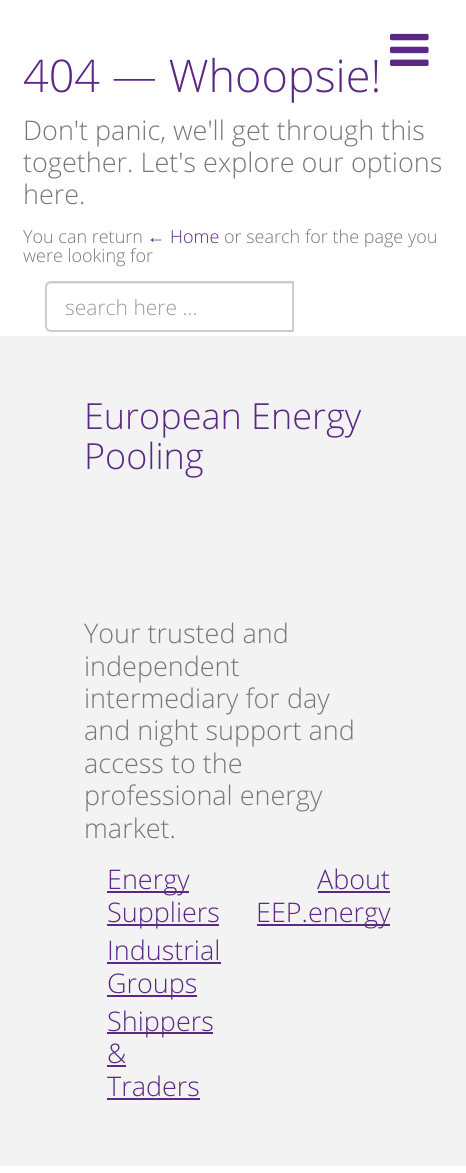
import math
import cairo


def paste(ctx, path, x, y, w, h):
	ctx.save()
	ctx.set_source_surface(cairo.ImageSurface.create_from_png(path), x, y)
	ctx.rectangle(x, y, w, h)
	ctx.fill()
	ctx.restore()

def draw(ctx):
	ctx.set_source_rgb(1, 1, 1)
	ctx.paint()
	paste(ctx, 'media/1.png', 390, 33, 39, 33)
	ctx.select_font_face('Open Sans Light')
	ctx.set_font_size(45)
	ctx.set_source_rgb(0.357, 0.157, 0.525)
	ctx.move_to(23, 92)
	ctx.show_text('404 — Whoopsie!')
	ctx.set_font_size(27)
	ctx.set_source_rgb(0.467, 0.467, 0.467)
	for x, y, s in [
		(23, 140, 'Don\'t panic, we\'ll get through this'),
		(23, 172, 'together. Let\'s explore our options'),
		(23, 204, 'here.'),
	]:
		ctx.move_to(x, y)
		ctx.show_text(s)
	ctx.set_font_size(18)
	ctx.move_to(23, 243)
	ctx.show_text('You can return')
	ctx.select_font_face('Liberation Sans')
	ctx.set_source_rgb(0.357, 0.157, 0.525)
	ctx.move_to(147, 243)
	ctx.show_text('←')
	ctx.select_font_face('Open Sans Light')
	ctx.move_to(170, 243)
	ctx.show_text('Home')
	ctx.set_source_rgb(0.467, 0.467, 0.467)
	ctx.move_to(224, 243)
	ctx.show_text('or search for the page you')
	ctx.move_to(23, 262)
	ctx.show_text('were looking for')
	ctx.set_source_rgb(0.925, 0.925, 0.925)
	ctx.new_path()
	ctx.move_to(51, 284)
	ctx.line_to(292, 284)
	ctx.line_to(292, 330)
	ctx.line_to(293, 330)
	ctx.line_to(293, 282)
	ctx.line_to(52, 282)
	ctx.curve_to(50, 282, 48, 284, 47, 286)
	ctx.curve_to(48, 285, 50, 284, 51, 284)
	ctx.close_path()
	ctx.fill()
	ctx.new_path()
	ctx.move_to(51, 282)
	ctx.line_to(293, 282)
	ctx.line_to(293, 331)
	ctx.line_to(51, 331)
	ctx.curve_to(48, 331, 46, 329, 46, 326)
	ctx.line_to(46, 287)
	ctx.curve_to(46, 284, 48, 282, 51, 282)
	ctx.close_path()
	ctx.set_source_rgb(0.8, 0.8, 0.8)
	ctx.stroke()
	ctx.set_font_size(21)
	ctx.set_source_rgb(0.6, 0.6, 0.6)
	ctx.move_to(65, 315)
	ctx.show_text('search here …')
	ctx.set_source_rgb(0.953, 0.953, 0.953)
	ctx.rectangle(0, 336, 466, 830)
	ctx.fill()
	ctx.set_font_size(36)
	ctx.set_source_rgb(0.357, 0.157, 0.525)
	ctx.move_to(84, 429)
	ctx.show_text('European Energy')
	ctx.move_to(84, 469)
	ctx.show_text('Pooling')
	ctx.set_font_size(27)
	ctx.set_source_rgb(0.467, 0.467, 0.467)
	for x, y, s in [
		(84, 643, 'Your trusted and'),
		(84, 676, 'independent'),
		(84, 708, 'intermediary for day'),
		(84, 740, 'and night support and'),
		(84, 773, 'access to the'),
		(84, 805, 'professional energy'),
		(84, 838, 'market.'),
	]:
		ctx.move_to(x, y)
		ctx.show_text(s)
	ctx.set_source_rgb(0.357, 0.157, 0.525)
	ctx.rectangle(107, 891, 82, 2)
	ctx.fill()
	ctx.move_to(107, 889)
	ctx.show_text('Energy')
	ctx.rectangle(107, 924, 112, 2)
	ctx.fill()
	ctx.move_to(107, 922)
	ctx.show_text('Suppliers')
	ctx.move_to(107, 960)
	ctx.show_text('Industrial')
	ctx.rectangle(107, 962, 114, 2)
	ctx.fill()
	ctx.rectangle(107, 995, 90, 2)
	ctx.fill()
	ctx.move_to(107, 993)
	ctx.show_text('Groups')
	ctx.rectangle(107, 1032, 106, 2)
	ctx.fill()
	ctx.move_to(107, 1031)
	ctx.show_text('Shippers')
	ctx.move_to(107, 1063)
	ctx.show_text('&')
	ctx.rectangle(107, 1065, 19, 2)
	ctx.fill()
	ctx.move_to(107, 1096)
	ctx.show_text('Traders')
	ctx.rectangle(107, 1098, 93, 2)
	ctx.fill()
	ctx.move_to(317, 889)
	ctx.show_text('About')
	ctx.rectangle(318, 891, 72, 2)
	ctx.fill()
	ctx.rectangle(257, 924, 133, 2)
	ctx.fill()
	ctx.move_to(256, 922)
	ctx.show_text('EEP.energy')


surface = cairo.ImageSurface(cairo.FORMAT_RGB24, 466, 1173)
ctx = cairo.Context(surface)
options = cairo.FontOptions()
options.set_hint_metrics(cairo.HINT_METRICS_OFF)
options.set_hint_style(cairo.HINT_STYLE_NONE)
ctx.set_font_options(options)
ctx.set_miter_limit(4)
draw(ctx)
surface.write_to_png('image.png')
